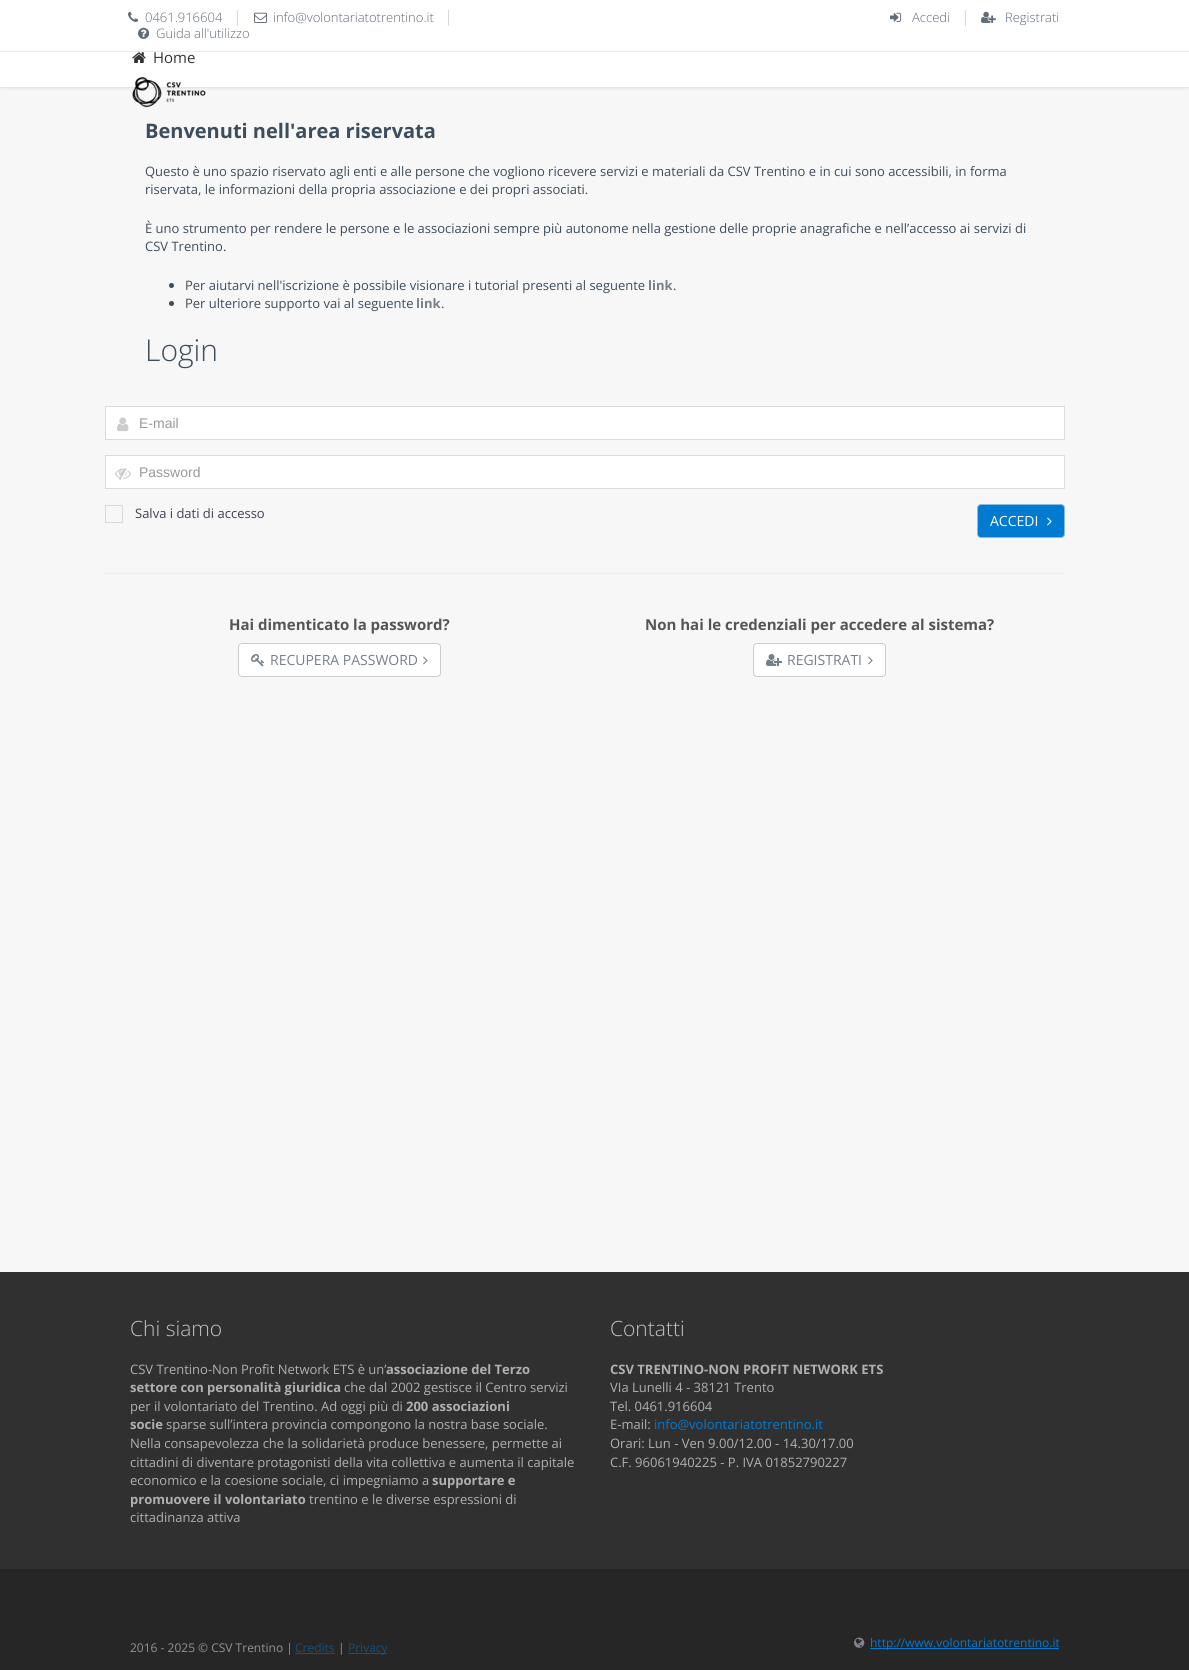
import math
import cairo


def round_path(ctx, x, y, w, h, r):
	ctx.new_sub_path()
	for i, (u, v) in enumerate([(x + w - r, y + h - r), (x + r, y + h - r), (x + r, y + r), (x + w - r, y + r)]):
		ctx.arc(u, v, r, i * math.pi / 2, (i + 1) * math.pi / 2)
	ctx.close_path()

def blur_box(ctx, x, y, w, h, r, blur, alpha):
	ctx.push_group_with_content(cairo.CONTENT_ALPHA)
	ctx.set_operator(cairo.OPERATOR_SOURCE)
	for i in range(15, -16, -2):
		e = blur * i / 6
		if min(w, h) + 2 * e > 0:
			ctx.set_source_rgba(0, 0, 0, alpha * math.erfc((i - 1) / 8.5) / 2)
			round_path(ctx, x - e, y - e, w + 2 * e, h + 2 * e, max(0, min(r + e + blur * .6, min(w, h) / 2 + e)))
			ctx.fill()
	ctx.mask(ctx.pop_group())

def paste(ctx, path, x, y, w, h):
	ctx.save()
	ctx.set_source_surface(cairo.ImageSurface.create_from_png(path), x, y)
	ctx.rectangle(x, y, w, h)
	ctx.fill()
	ctx.restore()

def draw(ctx):
	ctx.set_source_rgb(0.965, 0.965, 0.965)
	ctx.paint()
	ctx.set_source_rgb(1, 1, 1)
	ctx.rectangle(0, 0, 1189, 51)
	ctx.fill()
	ctx.set_source_rgb(0.933, 0.933, 0.933)
	ctx.rectangle(0, 51, 1189, 1)
	ctx.fill()
	ctx.set_source_rgb(0.847, 0.847, 0.847)
	ctx.rectangle(237, 10, 1, 16)
	ctx.fill()
	paste(ctx, 'media/1.png', 128, 11, 11, 11)
	ctx.select_font_face('Open Sans Light')
	ctx.set_font_size(13)
	ctx.set_source_rgb(0.38, 0.42, 0.463)
	ctx.move_to(145, 22)
	ctx.show_text('0461.916604')
	ctx.set_source_rgb(0.847, 0.847, 0.847)
	ctx.rectangle(448, 10, 1, 16)
	ctx.fill()
	paste(ctx, 'media/2.png', 254, 12, 13, 11)
	ctx.set_source_rgb(0.38, 0.42, 0.463)
	ctx.move_to(273, 22)
	ctx.show_text('info@volontariatotrentino.it')
	paste(ctx, 'media/3.png', 138, 27, 12, 12)
	ctx.move_to(156, 38)
	ctx.show_text('Guida all\'utilizzo')
	ctx.set_source_rgb(0.847, 0.847, 0.847)
	ctx.rectangle(965, 10, 1, 16)
	ctx.fill()
	paste(ctx, 'media/4.png', 890, 12, 12, 10)
	ctx.set_source_rgb(0.38, 0.42, 0.463)
	ctx.move_to(912, 22)
	ctx.show_text('Accedi')
	paste(ctx, 'media/5.png', 981, 11, 15, 12)
	ctx.move_to(1005, 22)
	ctx.show_text('Registrati')
	ctx.set_source_rgb(0.867, 0.867, 0.867)
	blur_box(ctx, 0, 53, 1189, 35, 0, 1.5, 1)
	ctx.set_source_rgb(1, 1, 1)
	ctx.rectangle(0, 52, 1189, 35)
	ctx.fill()
	paste(ctx, 'media/6.png', 132, 52, 14, 11)
	ctx.select_font_face('Open Sans')
	ctx.set_font_size(15)
	ctx.set_source_rgb(0.2, 0.2, 0.2)
	ctx.move_to(153, 63)
	ctx.show_text('Home')
	paste(ctx, 'media/7.png', 132, 77, 74, 31)
	ctx.select_font_face('Open Sans', cairo.FONT_SLANT_NORMAL, cairo.FONT_WEIGHT_BOLD)
	ctx.set_font_size(20)
	ctx.set_source_rgb(0.243, 0.302, 0.361)
	ctx.move_to(145, 138)
	ctx.show_text('Benvenuti nell\'area riservata')
	ctx.select_font_face('Open Sans')
	ctx.set_font_size(13)
	for x, y, s in [
		(145, 176, 'Questo è uno spazio riservato agli enti e alle persone che vogliono ricevere servizi e materiali da CSV Trentino e in cui sono accessibili, in forma'),
		(145, 194, 'riservata, le informazioni della propria associazione e dei propri associati.'),
		(145, 233, 'È uno strumento per rendere le persone e le associazioni sempre più autonome nella gestione delle proprie anagrafiche e nell’accesso ai servizi di'),
		(145, 251, 'CSV Trentino.'),
	]:
		ctx.move_to(x, y)
		ctx.show_text(s)
	ctx.new_path()
	ctx.arc(171.5, 285.5, 2.5, 0, 2 * math.pi)
	ctx.fill()
	ctx.move_to(185, 290)
	ctx.show_text('Per aiutarvi nell\'iscrizione è possibile visionare i tutorial presenti al seguente')
	ctx.select_font_face('Open Sans', cairo.FONT_SLANT_NORMAL, cairo.FONT_WEIGHT_BOLD)
	ctx.set_source_rgb(0.463, 0.498, 0.533)
	ctx.move_to(648, 290)
	ctx.show_text('link')
	ctx.select_font_face('Open Sans')
	ctx.set_source_rgb(0.243, 0.302, 0.361)
	ctx.move_to(673, 290)
	ctx.show_text('.')
	ctx.new_path()
	ctx.arc(171.5, 303.5, 2.5, 0, 2 * math.pi)
	ctx.fill()
	ctx.move_to(185, 308)
	ctx.show_text('Per ulteriore supporto vai al seguente')
	ctx.select_font_face('Open Sans', cairo.FONT_SLANT_NORMAL, cairo.FONT_WEIGHT_BOLD)
	ctx.set_source_rgb(0.463, 0.498, 0.533)
	ctx.move_to(416, 308)
	ctx.show_text('link')
	ctx.select_font_face('Open Sans')
	ctx.set_source_rgb(0.243, 0.302, 0.361)
	ctx.move_to(441, 308)
	ctx.show_text('.')
	ctx.select_font_face('Open Sans Light')
	ctx.set_font_size(30)
	ctx.move_to(145, 361)
	ctx.show_text('Login')
	ctx.set_source_rgb(1, 1, 1)
	ctx.rectangle(105.5, 406.5, 959, 33)
	ctx.fill_preserve()
	ctx.set_source_rgb(0.859, 0.859, 0.859)
	ctx.set_line_width(1)
	ctx.stroke()
	paste(ctx, 'media/8.png', 117, 417, 12, 15)
	ctx.select_font_face('Liberation Sans')
	ctx.set_font_size(14)
	ctx.set_source_rgb(0.6, 0.6, 0.6)
	ctx.move_to(139, 428)
	ctx.show_text('E-mail')
	ctx.set_source_rgb(1, 1, 1)
	ctx.rectangle(105.5, 455.5, 959, 33)
	ctx.fill_preserve()
	ctx.set_source_rgb(0.859, 0.859, 0.859)
	ctx.stroke()
	paste(ctx, 'media/9.png', 115, 468, 16, 12)
	ctx.set_source_rgb(0.6, 0.6, 0.6)
	ctx.move_to(139, 477)
	ctx.show_text('Password')
	ctx.rectangle(105.5, 505.5, 17, 17)
	ctx.set_source_rgb(0.851, 0.851, 0.851)
	ctx.stroke()
	ctx.select_font_face('Open Sans')
	ctx.set_font_size(13)
	ctx.set_source_rgb(0.247, 0.259, 0.329)
	ctx.move_to(135, 518)
	ctx.show_text('Salva i dati di accesso')
	ctx.set_source_rgb(0.004, 0.478, 0.82)
	round_path(ctx, 977.5, 504.5, 87, 33, 3.5)
	ctx.fill_preserve()
	ctx.set_source_rgb(0.514, 0.745, 0.878)
	ctx.stroke()
	ctx.set_font_size(14)
	ctx.set_source_rgb(1, 1, 1)
	ctx.move_to(990, 526)
	ctx.show_text('ACCEDI')
	paste(ctx, 'media/10.png', 1047, 517, 5, 9)
	ctx.set_source_rgb(0.933, 0.933, 0.933)
	ctx.rectangle(105, 573, 960, 1)
	ctx.fill()
	ctx.select_font_face('Open Sans', cairo.FONT_SLANT_NORMAL, cairo.FONT_WEIGHT_BOLD)
	ctx.set_font_size(15)
	ctx.set_source_rgb(0.333, 0.333, 0.333)
	ctx.move_to(229, 630)
	ctx.show_text('Hai dimenticato la password?')
	ctx.set_source_rgb(1, 1, 1)
	round_path(ctx, 238.5, 643.5, 202, 33, 3.5)
	ctx.fill_preserve()
	ctx.set_source_rgb(0.8, 0.8, 0.8)
	ctx.stroke()
	paste(ctx, 'media/11.png', 251, 654, 14, 13)
	ctx.select_font_face('Open Sans')
	ctx.set_font_size(14)
	ctx.set_source_rgb(0.463, 0.498, 0.533)
	ctx.move_to(270, 665)
	ctx.show_text('RECUPERA PASSWORD')
	paste(ctx, 'media/12.png', 423, 656, 5, 9)
	ctx.select_font_face('Open Sans', cairo.FONT_SLANT_NORMAL, cairo.FONT_WEIGHT_BOLD)
	ctx.set_font_size(15)
	ctx.set_source_rgb(0.333, 0.333, 0.333)
	ctx.move_to(645, 630)
	ctx.show_text('Non hai le credenziali per accedere al sistema?')
	ctx.set_source_rgb(1, 1, 1)
	round_path(ctx, 753.5, 643.5, 132, 33, 3.5)
	ctx.fill_preserve()
	ctx.set_source_rgb(0.8, 0.8, 0.8)
	ctx.stroke()
	paste(ctx, 'media/13.png', 766, 654, 16, 12)
	ctx.select_font_face('Open Sans')
	ctx.set_font_size(14)
	ctx.set_source_rgb(0.463, 0.498, 0.533)
	ctx.move_to(787, 665)
	ctx.show_text('REGISTRATI')
	paste(ctx, 'media/12.png', 868, 656, 5, 9)
	ctx.set_source_rgb(0.192, 0.188, 0.188)
	ctx.rectangle(0, 1272, 1189, 297)
	ctx.fill()
	ctx.select_font_face('Open Sans Light')
	ctx.set_font_size(21)
	ctx.set_source_rgb(0.761, 0.757, 0.757)
	ctx.move_to(130, 1336)
	ctx.show_text('Chi siamo')
	ctx.select_font_face('Open Sans')
	ctx.set_font_size(13)
	ctx.set_source_rgb(0.69, 0.69, 0.69)
	ctx.move_to(130, 1374)
	ctx.show_text('CSV Trentino-Non Profit Network ETS è un’')
	ctx.select_font_face('Open Sans', cairo.FONT_SLANT_NORMAL, cairo.FONT_WEIGHT_BOLD)
	ctx.move_to(386, 1374)
	ctx.show_text('associazione del Terzo')
	ctx.move_to(130, 1392)
	ctx.show_text('settore con personalità giuridica')
	ctx.select_font_face('Open Sans')
	ctx.move_to(344, 1392)
	ctx.show_text('che dal 2002 gestisce il Centro servizi')
	ctx.move_to(130, 1411)
	ctx.show_text('per il volontariato del Trentino. Ad oggi più di')
	ctx.select_font_face('Open Sans', cairo.FONT_SLANT_NORMAL, cairo.FONT_WEIGHT_BOLD)
	ctx.move_to(406, 1411)
	ctx.show_text('200 associazioni')
	ctx.move_to(130, 1429)
	ctx.show_text('socie')
	ctx.select_font_face('Open Sans')
	for x, y, s in [
		(166, 1429, 'sparse sull’intera provincia compongono la nostra base sociale.'),
		(130, 1448, 'Nella consapevolezza che la solidarietà produce benessere, permette ai'),
		(130, 1467, 'cittadini di diventare protagonisti della vita collettiva e aumenta il capitale'),
		(130, 1485, 'economico e la coesione sociale, ci impegniamo a'),
	]:
		ctx.move_to(x, y)
		ctx.show_text(s)
	ctx.select_font_face('Open Sans', cairo.FONT_SLANT_NORMAL, cairo.FONT_WEIGHT_BOLD)
	ctx.move_to(432, 1485)
	ctx.show_text('supportare e')
	ctx.move_to(130, 1504)
	ctx.show_text('promuovere il volontariato')
	ctx.select_font_face('Open Sans')
	ctx.move_to(309, 1504)
	ctx.show_text('trentino e le diverse espressioni di')
	ctx.move_to(130, 1522)
	ctx.show_text('cittadinanza attiva')
	ctx.select_font_face('Open Sans Light')
	ctx.set_font_size(21)
	ctx.set_source_rgb(0.761, 0.757, 0.757)
	ctx.move_to(610, 1336)
	ctx.show_text('Contatti')
	ctx.select_font_face('Open Sans', cairo.FONT_SLANT_NORMAL, cairo.FONT_WEIGHT_BOLD)
	ctx.set_font_size(13)
	ctx.set_source_rgb(0.69, 0.69, 0.69)
	ctx.move_to(610, 1374)
	ctx.show_text('CSV TRENTINO-NON PROFIT NETWORK ETS')
	ctx.select_font_face('Open Sans')
	for x, y, s in [
		(610, 1392, 'VIa Lunelli 4 - 38121 Trento'),
		(610, 1411, 'Tel. 0461.916604'),
		(610, 1429, 'E-mail:'),
	]:
		ctx.move_to(x, y)
		ctx.show_text(s)
	ctx.set_source_rgb(0.004, 0.478, 0.82)
	ctx.move_to(654, 1429)
	ctx.show_text('info@volontariatotrentino.it')
	ctx.set_source_rgb(0.69, 0.69, 0.69)
	ctx.move_to(610, 1448)
	ctx.show_text('Orari: Lun - Ven 9.00/12.00 - 14.30/17.00')
	ctx.move_to(610, 1467)
	ctx.show_text('C.F. 96061940225 - P. IVA 01852790227')
	ctx.set_source_rgb(0.153, 0.149, 0.149)
	ctx.rectangle(0, 1569, 1189, 101)
	ctx.fill()
	ctx.set_font_size(12)
	ctx.set_source_rgb(0.576, 0.576, 0.576)
	ctx.move_to(130, 1652)
	ctx.show_text('2016 - 2025 © CSV Trentino |')
	ctx.set_source_rgb(0.078, 0.314, 0.486)
	ctx.move_to(295, 1652)
	ctx.show_text('Credits')
	ctx.rectangle(295, 1653, 40, 1)
	ctx.fill()
	ctx.set_source_rgb(0.576, 0.576, 0.576)
	ctx.move_to(338, 1652)
	ctx.show_text('|')
	ctx.set_source_rgb(0.078, 0.314, 0.486)
	ctx.rectangle(348, 1653, 39, 1)
	ctx.fill()
	ctx.move_to(348, 1652)
	ctx.show_text('Privacy')
	paste(ctx, 'media/14.png', 854, 1637, 11, 11)
	ctx.set_source_rgb(0.004, 0.478, 0.82)
	ctx.rectangle(870, 1648, 189, 1)
	ctx.fill()
	ctx.move_to(870, 1647)
	ctx.show_text('http://www.volontariatotrentino.it')


surface = cairo.ImageSurface(cairo.FORMAT_RGB24, 1189, 1670)
ctx = cairo.Context(surface)
options = cairo.FontOptions()
options.set_hint_metrics(cairo.HINT_METRICS_OFF)
options.set_hint_style(cairo.HINT_STYLE_NONE)
ctx.set_font_options(options)
ctx.set_miter_limit(4)
draw(ctx)
surface.write_to_png('image.png')
